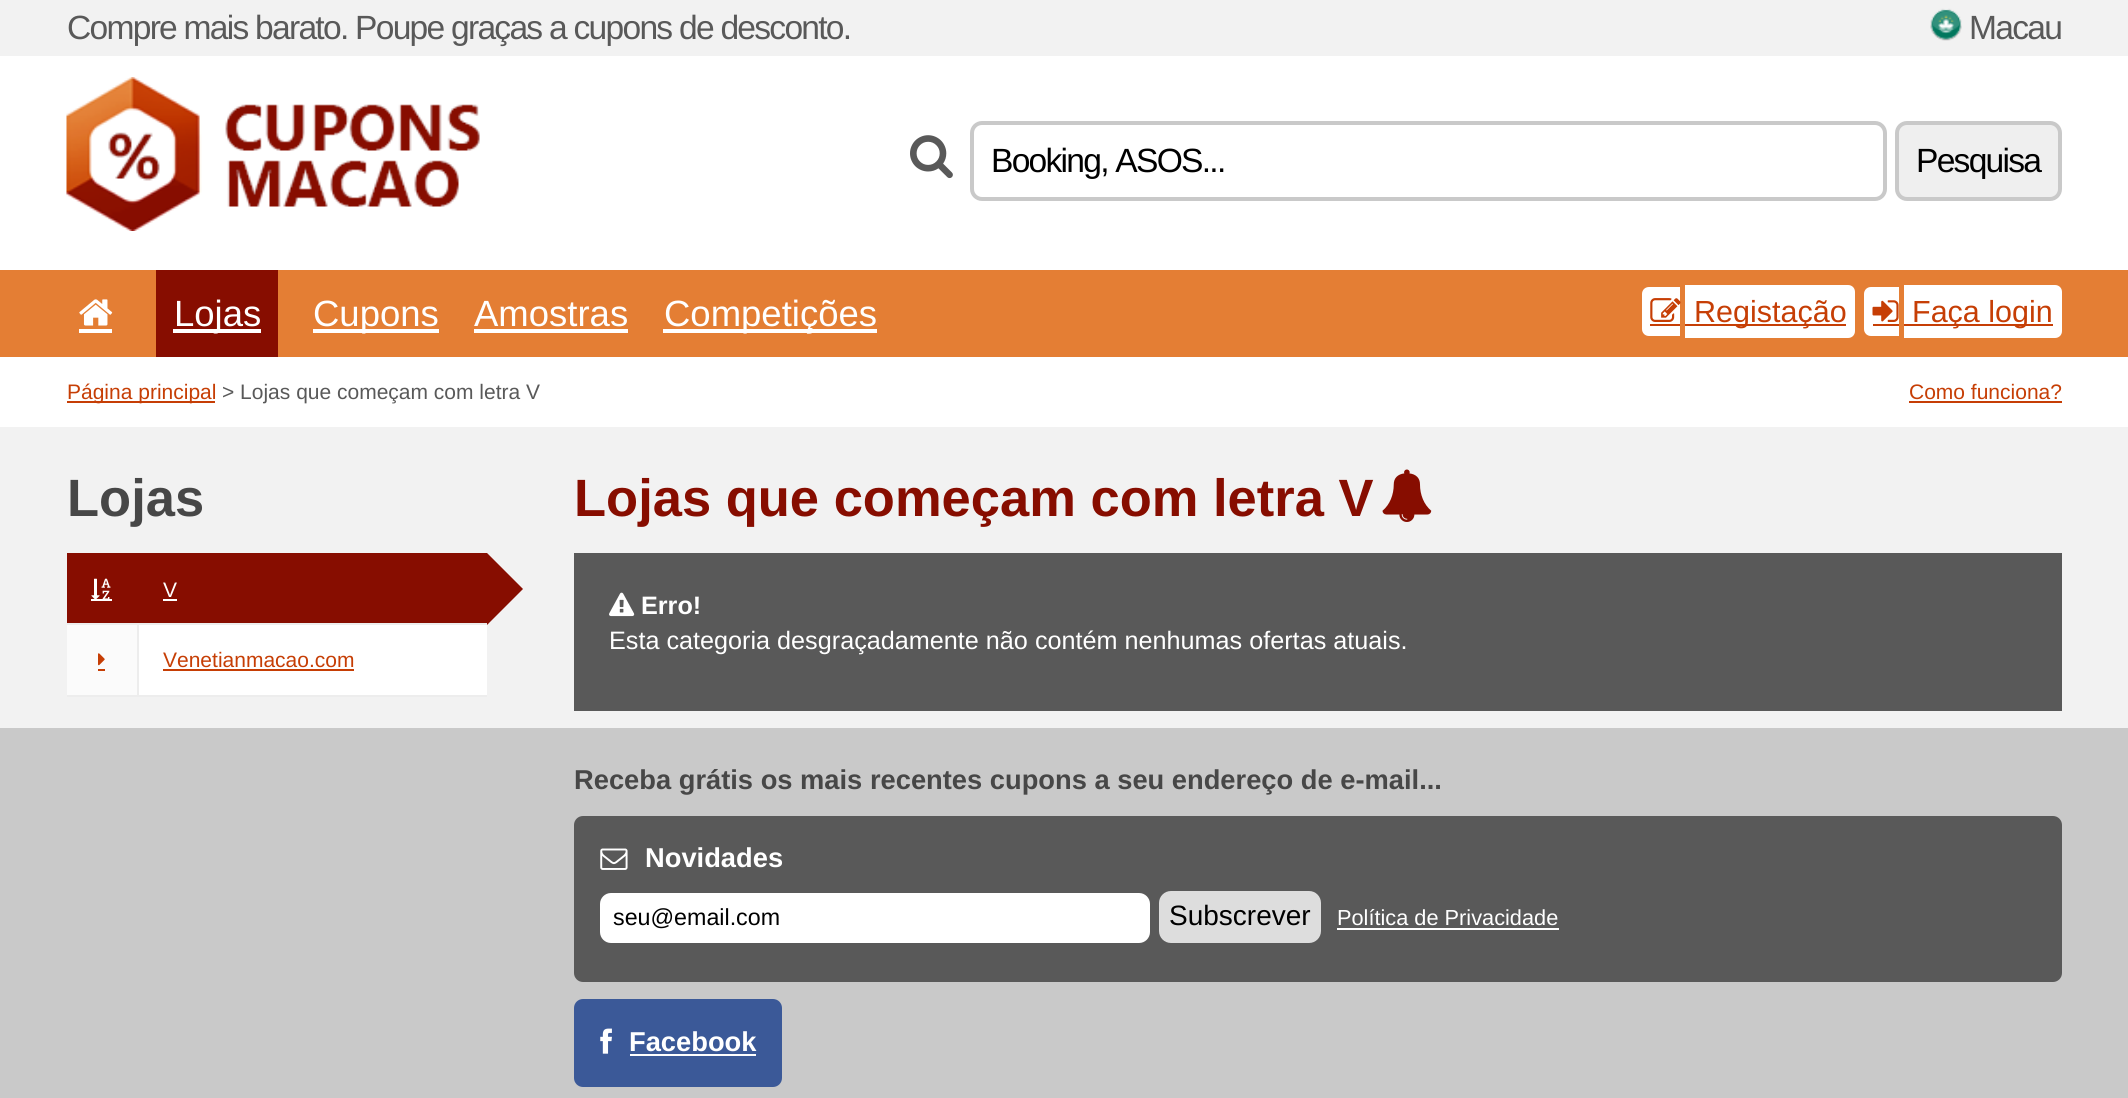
import math
import cairo


def write_spaced(ctx, x, y, s, letter, word):
	ctx.move_to(x, y)
	for ch in s:
		ctx.show_text(ch)
		ctx.rel_move_to(letter + word * (ch == ' '), 0)

def round_path(ctx, x, y, w, h, r):
	ctx.new_sub_path()
	for i, (u, v) in enumerate([(x + w - r, y + h - r), (x + r, y + h - r), (x + r, y + r), (x + w - r, y + r)]):
		ctx.arc(u, v, r, i * math.pi / 2, (i + 1) * math.pi / 2)
	ctx.close_path()

def paste(ctx, path, x, y, w, h):
	ctx.save()
	ctx.set_source_surface(cairo.ImageSurface.create_from_png(path), x, y)
	ctx.rectangle(x, y, w, h)
	ctx.fill()
	ctx.restore()

def draw(ctx):
	ctx.set_source_rgb(0.949, 0.949, 0.949)
	ctx.paint()
	ctx.select_font_face('Liberation Sans')
	ctx.set_font_size(33.6)
	ctx.set_source_rgb(0.349, 0.349, 0.349)
	write_spaced(ctx, 67, 39, 'Compre mais barato. Poupe graças a cupons de desconto.', -1.75, 0)
	paste(ctx, 'media/1.png', 1930, 8, 32, 33)
	write_spaced(ctx, 1969, 39, 'Macau', -1.75, 0)
	ctx.set_source_rgb(1, 1, 1)
	ctx.rectangle(0, 56, 2128, 214)
	ctx.fill()
	paste(ctx, 'media/2.png', 66, 77, 414, 154)
	paste(ctx, 'media/3.png', 910, 135, 43, 44)
	round_path(ctx, 972, 123, 913, 76, 10)
	ctx.set_source_rgb(0.788, 0.788, 0.788)
	ctx.set_line_width(4)
	ctx.stroke()
	ctx.set_source_rgb(0, 0, 0)
	write_spaced(ctx, 991, 172, 'Booking, ASOS...', -1.75, 0)
	ctx.set_source_rgb(0.937, 0.937, 0.937)
	round_path(ctx, 1897, 123, 163, 76, 10)
	ctx.fill_preserve()
	ctx.set_source_rgb(0.788, 0.788, 0.788)
	ctx.stroke()
	ctx.set_source_rgb(0, 0, 0)
	write_spaced(ctx, 1916, 172, 'Pesquisa', -1.75, 0)
	ctx.set_source_rgb(0.894, 0.494, 0.204)
	ctx.rectangle(0, 270, 2128, 87)
	ctx.fill()
	paste(ctx, 'media/4.png', 79, 299, 34, 27)
	ctx.set_source_rgb(1, 1, 1)
	ctx.rectangle(79, 329, 33, 4)
	ctx.fill()
	ctx.set_source_rgb(0.529, 0.051, 0)
	ctx.rectangle(156, 270, 122, 87)
	ctx.fill()
	ctx.set_source_rgb(1, 1, 1)
	ctx.rectangle(173, 329, 88, 4)
	ctx.fill()
	ctx.set_font_size(36.5)
	ctx.move_to(174, 326)
	ctx.show_text('Lojas')
	ctx.rectangle(313, 329, 126, 4)
	ctx.fill()
	ctx.move_to(313, 326)
	ctx.show_text('Cupons')
	ctx.move_to(474, 326)
	ctx.show_text('Amostras')
	ctx.rectangle(474, 329, 154, 4)
	ctx.fill()
	ctx.rectangle(663, 329, 214, 4)
	ctx.fill()
	ctx.move_to(664, 326)
	ctx.show_text('Competições')
	ctx.new_path()
	ctx.move_to(1649, 287)
	ctx.line_to(1680, 287)
	ctx.line_to(1680, 336)
	ctx.line_to(1649, 336)
	ctx.curve_to(1645, 336, 1642, 333, 1642, 329)
	ctx.line_to(1642, 294)
	ctx.curve_to(1642, 290, 1645, 287, 1649, 287)
	ctx.close_path()
	ctx.fill()
	paste(ctx, 'media/5.png', 1650, 298, 31, 24)
	ctx.new_path()
	ctx.move_to(1685, 285)
	ctx.line_to(1848, 285)
	ctx.curve_to(1852, 285, 1855, 288, 1855, 292)
	ctx.line_to(1855, 331)
	ctx.curve_to(1855, 335, 1852, 338, 1848, 338)
	ctx.line_to(1685, 338)
	ctx.close_path()
	ctx.fill()
	ctx.set_source_rgb(0.776, 0.243, 0.02)
	ctx.rectangle(1685, 324, 161, 2)
	ctx.fill()
	ctx.set_font_size(30.5)
	ctx.move_to(1694, 322)
	ctx.show_text('Registação')
	ctx.rectangle(1650, 324, 30, 2)
	ctx.fill()
	ctx.set_source_rgb(1, 1, 1)
	ctx.new_path()
	ctx.move_to(1871, 287)
	ctx.line_to(1899, 287)
	ctx.line_to(1899, 336)
	ctx.line_to(1871, 336)
	ctx.curve_to(1867, 336, 1864, 333, 1864, 329)
	ctx.line_to(1864, 294)
	ctx.curve_to(1864, 290, 1867, 287, 1871, 287)
	ctx.close_path()
	ctx.fill()
	paste(ctx, 'media/6.png', 1872, 300, 27, 22)
	ctx.new_path()
	ctx.move_to(1904, 285)
	ctx.line_to(2055, 285)
	ctx.curve_to(2059, 285, 2062, 288, 2062, 292)
	ctx.line_to(2062, 331)
	ctx.curve_to(2062, 335, 2059, 338, 2055, 338)
	ctx.line_to(1904, 338)
	ctx.close_path()
	ctx.fill()
	ctx.set_source_rgb(0.776, 0.243, 0.02)
	ctx.rectangle(1904, 324, 149, 2)
	ctx.fill()
	ctx.move_to(1912, 322)
	ctx.show_text('Faça login')
	ctx.rectangle(1873, 324, 26, 2)
	ctx.fill()
	ctx.set_source_rgb(1, 1, 1)
	ctx.rectangle(0, 357, 2128, 70)
	ctx.fill()
	ctx.set_source_rgb(0.776, 0.243, 0.02)
	ctx.rectangle(67, 401, 148, 2)
	ctx.fill()
	ctx.set_font_size(21)
	ctx.move_to(67, 399)
	ctx.show_text('Página principal')
	ctx.set_source_rgb(0.349, 0.349, 0.349)
	ctx.move_to(222, 399)
	ctx.show_text('> Lojas que começam com letra V')
	ctx.set_source_rgb(0.776, 0.243, 0.02)
	ctx.move_to(1909, 399)
	ctx.show_text('Como funciona?')
	ctx.rectangle(1909, 401, 153, 2)
	ctx.fill()
	ctx.select_font_face('Liberation Sans', cairo.FONT_SLANT_NORMAL, cairo.FONT_WEIGHT_BOLD)
	ctx.set_font_size(52.5)
	ctx.set_source_rgb(0.278, 0.278, 0.278)
	ctx.move_to(67, 516)
	ctx.show_text('Lojas')
	ctx.set_source_rgb(0.529, 0.051, 0)
	ctx.rectangle(67, 553, 420, 70)
	ctx.fill()
	paste(ctx, 'media/7.png', 91, 578, 20, 21)
	ctx.set_source_rgb(1, 1, 1)
	ctx.rectangle(91, 599, 21, 2)
	ctx.fill()
	ctx.select_font_face('Liberation Sans')
	ctx.set_font_size(21)
	ctx.move_to(163, 597)
	ctx.show_text('V')
	ctx.rectangle(163, 599, 14, 2)
	ctx.fill()
	ctx.set_source_rgb(0.529, 0.051, 0)
	ctx.new_path()
	ctx.move_to(487, 553)
	ctx.line_to(523, 589)
	ctx.line_to(487, 625)
	ctx.line_to(451, 589)
	ctx.close_path()
	ctx.fill()
	ctx.set_source_rgb(1, 1, 1)
	ctx.rectangle(139, 625, 348, 70)
	ctx.fill()
	ctx.set_source_rgb(0.929, 0.929, 0.929)
	ctx.rectangle(67, 623, 420, 2)
	ctx.rectangle(67, 695, 420, 2)
	ctx.fill()
	ctx.set_source_rgb(0.984, 0.984, 0.984)
	ctx.rectangle(67, 625, 70, 70)
	ctx.fill()
	ctx.set_source_rgb(0.929, 0.929, 0.929)
	ctx.rectangle(137, 625, 2, 70)
	ctx.fill()
	paste(ctx, 'media/8.png', 98, 653, 7, 13)
	ctx.set_source_rgb(0.776, 0.243, 0.02)
	ctx.rectangle(98, 669, 7, 2)
	ctx.fill()
	ctx.move_to(163, 667)
	ctx.show_text('Venetianmacao.com')
	ctx.rectangle(163, 669, 191, 2)
	ctx.fill()
	ctx.select_font_face('Liberation Sans', cairo.FONT_SLANT_NORMAL, cairo.FONT_WEIGHT_BOLD)
	ctx.set_font_size(52.5)
	ctx.set_source_rgb(0.529, 0.051, 0)
	ctx.move_to(574, 516)
	ctx.show_text('Lojas que começam com letra V')
	paste(ctx, 'media/9.png', 1382, 469, 50, 53)
	ctx.set_source_rgb(0.349, 0.349, 0.349)
	ctx.rectangle(574, 553, 1488, 158)
	ctx.fill()
	paste(ctx, 'media/10.png', 609, 592, 26, 25)
	ctx.set_font_size(25.2)
	ctx.set_source_rgb(1, 1, 1)
	ctx.move_to(641, 614)
	ctx.show_text('Erro!')
	ctx.select_font_face('Liberation Sans')
	ctx.move_to(609, 649)
	ctx.show_text('Esta categoria desgraçadamente não contém nenhumas ofertas atuais.')
	ctx.set_source_rgb(0.788, 0.788, 0.788)
	ctx.rectangle(0, 728, 2128, 370)
	ctx.fill()
	ctx.select_font_face('Liberation Sans', cairo.FONT_SLANT_NORMAL, cairo.FONT_WEIGHT_BOLD)
	ctx.set_font_size(27.3)
	ctx.set_source_rgb(0.278, 0.278, 0.278)
	ctx.move_to(574, 789)
	ctx.show_text('Receba grátis os mais recentes cupons a seu endereço de e-mail...')
	ctx.set_source_rgb(0.349, 0.349, 0.349)
	round_path(ctx, 574, 816, 1488, 166, 9)
	ctx.fill()
	paste(ctx, 'media/11.png', 600, 848, 28, 22)
	ctx.set_source_rgb(1, 1, 1)
	ctx.move_to(645, 867)
	ctx.show_text('Novidades')
	round_path(ctx, 601, 894, 548, 48, 10)
	ctx.fill_preserve()
	ctx.set_line_width(2)
	ctx.stroke()
	ctx.select_font_face('Liberation Sans')
	ctx.set_font_size(23.25)
	ctx.set_source_rgb(0, 0, 0)
	ctx.move_to(613, 925)
	ctx.show_text('seu@email.com')
	ctx.set_source_rgb(0.867, 0.867, 0.867)
	round_path(ctx, 1159, 891, 162, 52, 12)
	ctx.fill()
	ctx.set_font_size(28)
	ctx.set_source_rgb(0, 0, 0)
	ctx.move_to(1169, 925)
	ctx.show_text('Subscrever')
	ctx.set_font_size(21.75)
	ctx.set_source_rgb(1, 1, 1)
	ctx.move_to(1337, 925)
	ctx.show_text('Política de Privacidade')
	ctx.rectangle(1337, 928, 222, 2)
	ctx.fill()
	ctx.set_source_rgb(0.231, 0.349, 0.596)
	round_path(ctx, 574, 999, 208, 88, 9)
	ctx.fill()
	paste(ctx, 'media/12.png', 600, 1028, 12, 26)
	ctx.select_font_face('Liberation Sans', cairo.FONT_SLANT_NORMAL, cairo.FONT_WEIGHT_BOLD)
	ctx.set_font_size(27.3)
	ctx.set_source_rgb(1, 1, 1)
	ctx.move_to(629, 1051)
	ctx.show_text('Facebook')
	ctx.rectangle(630, 1054, 126, 2)
	ctx.fill()


surface = cairo.ImageSurface(cairo.FORMAT_RGB24, 2128, 1098)
ctx = cairo.Context(surface)
options = cairo.FontOptions()
options.set_hint_metrics(cairo.HINT_METRICS_OFF)
options.set_hint_style(cairo.HINT_STYLE_NONE)
ctx.set_font_options(options)
ctx.set_miter_limit(4)
draw(ctx)
surface.write_to_png('image.png')
